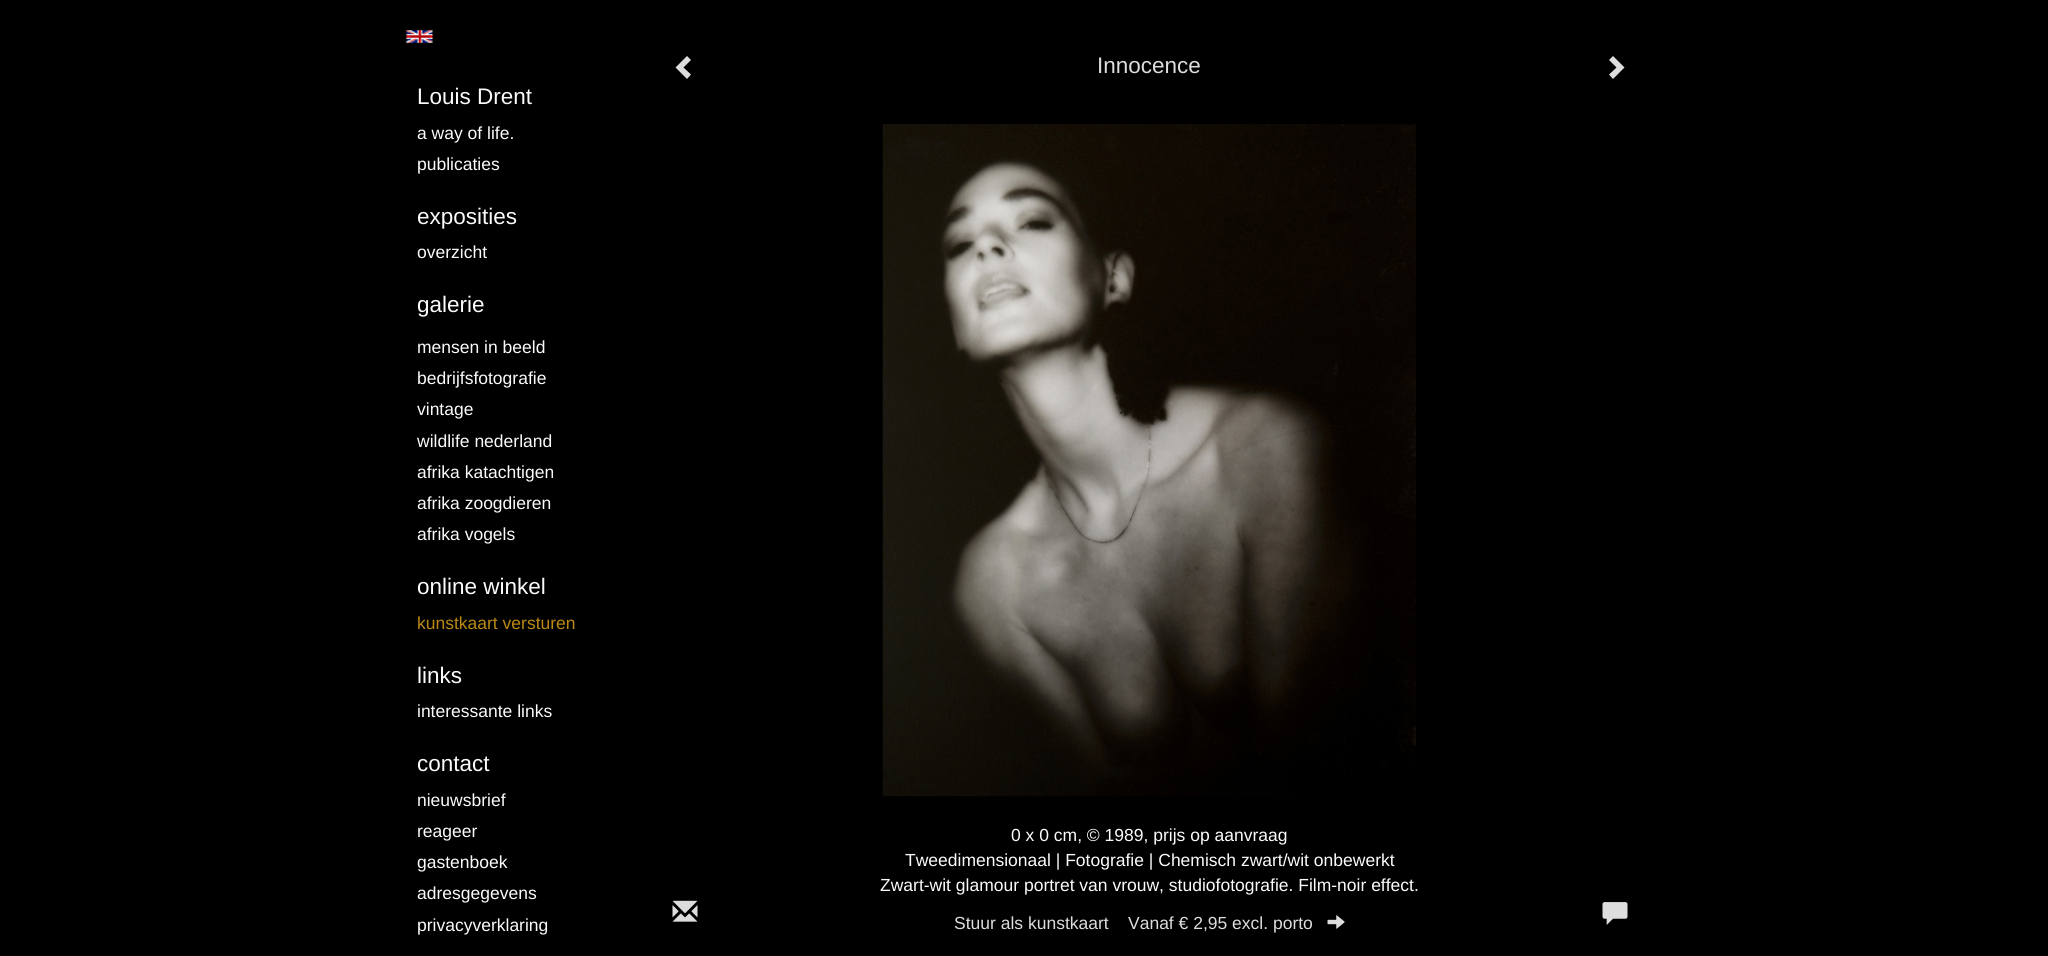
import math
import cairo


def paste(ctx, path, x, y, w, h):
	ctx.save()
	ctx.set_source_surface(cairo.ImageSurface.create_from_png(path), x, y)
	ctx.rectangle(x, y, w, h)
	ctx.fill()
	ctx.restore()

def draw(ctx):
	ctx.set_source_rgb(0, 0, 0)
	ctx.paint()
	paste(ctx, 'media/1.png', 405, 29, 29, 15)
	ctx.select_font_face('Liberation Sans')
	ctx.set_font_size(22.5)
	ctx.set_source_rgb(0.984, 0.984, 0.984)
	ctx.move_to(417, 104)
	ctx.show_text('Louis Drent')
	ctx.set_font_size(17.5)
	ctx.move_to(417, 139)
	ctx.show_text('a way of life.')
	ctx.move_to(417, 170)
	ctx.show_text('publicaties')
	ctx.set_font_size(22.5)
	ctx.move_to(417, 224)
	ctx.show_text('exposities')
	ctx.set_font_size(17.5)
	ctx.move_to(417, 258)
	ctx.show_text('overzicht')
	ctx.set_font_size(22.5)
	ctx.move_to(417, 312)
	ctx.show_text('galerie')
	ctx.set_font_size(17.5)
	for x, y, s in [
		(417, 353, 'mensen in beeld'),
		(417, 384, 'bedrijfsfotografie'),
		(417, 415, 'vintage'),
		(417, 447, 'wildlife nederland'),
		(417, 478, 'afrika katachtigen'),
		(417, 509, 'afrika zoogdieren'),
		(417, 540, 'afrika vogels'),
	]:
		ctx.move_to(x, y)
		ctx.show_text(s)
	ctx.set_font_size(22.5)
	ctx.move_to(417, 594)
	ctx.show_text('online winkel')
	ctx.set_font_size(17.5)
	ctx.set_source_rgb(0.725, 0.537, 0.078)
	ctx.move_to(417, 629)
	ctx.show_text('kunstkaart versturen')
	ctx.set_font_size(22.5)
	ctx.set_source_rgb(0.984, 0.984, 0.984)
	ctx.move_to(417, 683)
	ctx.show_text('links')
	ctx.set_font_size(17.5)
	ctx.move_to(417, 717)
	ctx.show_text('interessante links')
	ctx.set_font_size(22.5)
	ctx.move_to(417, 771)
	ctx.show_text('contact')
	ctx.set_font_size(17.5)
	for x, y, s in [
		(417, 806, 'nieuwsbrief'),
		(417, 837, 'reageer'),
		(417, 868, 'gastenboek'),
		(417, 899, 'adresgegevens'),
		(417, 931, 'privacyverklaring'),
	]:
		ctx.move_to(x, y)
		ctx.show_text(s)
	ctx.set_source_rgb(0.867, 0.867, 0.867)
	ctx.new_path()
	ctx.move_to(691, 60)
	ctx.line_to(683.5, 67.5)
	ctx.line_to(691, 74.5)
	ctx.line_to(687, 79)
	ctx.line_to(675.5, 67.5)
	ctx.line_to(687, 56)
	ctx.close_path()
	ctx.fill()
	ctx.set_font_size(22.5)
	ctx.move_to(1097, 73)
	ctx.show_text('Innocence')
	ctx.new_path()
	ctx.move_to(1624.5, 67.5)
	ctx.line_to(1613, 79)
	ctx.line_to(1609, 74.5)
	ctx.line_to(1616.5, 67.5)
	ctx.line_to(1609, 60)
	ctx.line_to(1613, 56)
	ctx.close_path()
	ctx.fill()
	paste(ctx, 'media/2.png', 882, 124, 534, 673)
	ctx.set_font_size(17.5)
	ctx.set_source_rgb(0.984, 0.984, 0.984)
	for x, y, s in [
		(1011, 841, '0 x 0 cm, © 1989, prijs op aanvraag'),
		(905, 866, 'Tweedimensionaal | Fotografie | Chemisch zwart/wit onbewerkt'),
		(880, 891, 'Zwart-wit glamour portret van vrouw, studiofotografie. Film-noir effect.'),
	]:
		ctx.move_to(x, y)
		ctx.show_text(s)
	paste(ctx, 'media/3.png', 672, 900, 26, 22)
	ctx.set_source_rgb(0.867, 0.867, 0.867)
	ctx.move_to(954, 929)
	ctx.show_text('Stuur als kunstkaart')
	ctx.move_to(1128, 929)
	ctx.show_text('Vanaf € 2,95 excl. porto')
	paste(ctx, 'media/4.png', 1327, 915, 18, 14)
	paste(ctx, 'media/5.png', 1602, 902, 26, 23)


surface = cairo.ImageSurface(cairo.FORMAT_RGB24, 2048, 956)
ctx = cairo.Context(surface)
options = cairo.FontOptions()
options.set_hint_metrics(cairo.HINT_METRICS_OFF)
options.set_hint_style(cairo.HINT_STYLE_NONE)
ctx.set_font_options(options)
ctx.set_miter_limit(4)
draw(ctx)
surface.write_to_png('image.png')
